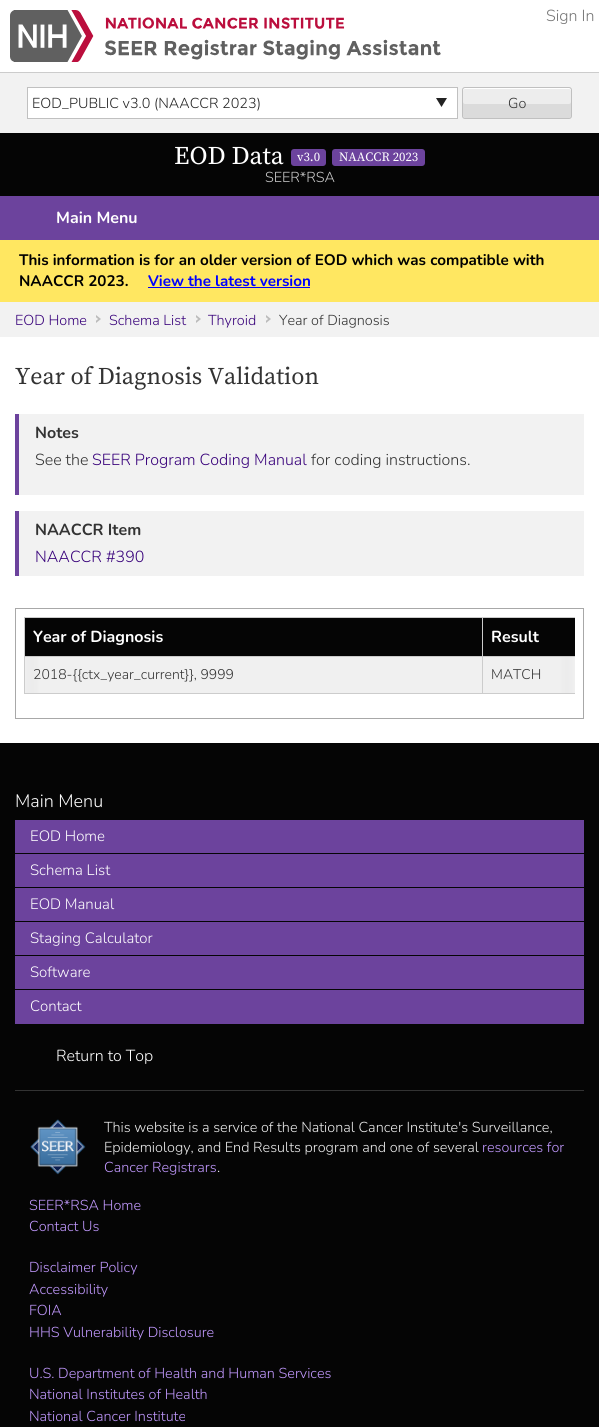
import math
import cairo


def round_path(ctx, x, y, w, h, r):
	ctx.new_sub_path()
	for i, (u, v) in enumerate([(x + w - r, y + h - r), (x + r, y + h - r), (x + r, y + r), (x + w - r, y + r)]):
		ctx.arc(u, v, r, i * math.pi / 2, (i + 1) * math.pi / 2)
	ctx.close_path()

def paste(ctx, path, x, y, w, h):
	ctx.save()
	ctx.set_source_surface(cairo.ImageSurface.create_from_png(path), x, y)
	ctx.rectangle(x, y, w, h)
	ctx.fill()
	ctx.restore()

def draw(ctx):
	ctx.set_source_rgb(0.02, 0.02, 0.02)
	ctx.paint()
	ctx.set_source_rgb(1, 1, 1)
	ctx.rectangle(0, 0, 599, 72)
	ctx.fill()
	ctx.select_font_face('Nunito ExtraLight')
	ctx.set_font_size(16)
	ctx.set_source_rgb(0.463, 0.463, 0.463)
	ctx.move_to(546, 21)
	ctx.show_text('Sign In')
	paste(ctx, 'media/1.png', 10, 10, 431, 52)
	ctx.set_source_rgb(0.949, 0.949, 0.949)
	ctx.rectangle(0, 73, 599, 60)
	ctx.fill()
	ctx.set_source_rgb(0.8, 0.8, 0.8)
	ctx.rectangle(0, 72, 599, 1)
	ctx.fill()
	ctx.set_source_rgb(1, 1, 1)
	ctx.rectangle(28, 88, 429, 30)
	ctx.fill()
	ctx.set_source_rgb(0.133, 0.133, 0.133)
	ctx.new_path()
	ctx.move_to(447, 98)
	ctx.line_to(441.5, 107)
	ctx.line_to(436, 98)
	ctx.close_path()
	ctx.fill()
	ctx.rectangle(27.5, 87.5, 430, 31)
	ctx.set_source_rgb(0.753, 0.753, 0.753)
	ctx.set_line_width(1)
	ctx.stroke()
	ctx.set_font_size(14.4)
	ctx.set_source_rgb(0.133, 0.133, 0.133)
	ctx.move_to(32, 108)
	ctx.show_text('EOD_PUBLIC v3.0 (NAACCR 2023)')
	ctx.set_source_rgb(0.929, 0.929, 0.929)
	round_path(ctx, 462, 87, 110, 32, 3)
	ctx.fill()
	ctx.set_source_rgb(1, 1, 1)
	ctx.new_path()
	ctx.move_to(465, 89)
	ctx.line_to(569, 89)
	ctx.curve_to(570, 89, 571, 90, 571, 91)
	ctx.curve_to(571, 90, 571, 88, 569, 88)
	ctx.line_to(465, 88)
	ctx.curve_to(463, 88, 463, 90, 463, 91)
	ctx.curve_to(463, 90, 464, 89, 465, 89)
	ctx.close_path()
	ctx.fill()
	ctx.set_source_rgb(0.859, 0.859, 0.859)
	ctx.new_path()
	ctx.move_to(463, 102)
	ctx.curve_to(463, 122, 459, 118, 482, 118)
	ctx.line_to(552, 118)
	ctx.curve_to(575, 118, 571, 122, 571, 102)
	ctx.curve_to(571, 103, 570, 104, 569, 104)
	ctx.line_to(465, 104)
	ctx.curve_to(464, 104, 463, 103, 463, 102)
	ctx.close_path()
	ctx.fill()
	round_path(ctx, 462.5, 87.5, 109, 31, 2.5)
	ctx.set_source_rgb(0.753, 0.753, 0.753)
	ctx.stroke()
	ctx.set_source_rgb(0.2, 0.2, 0.2)
	ctx.move_to(508, 108)
	ctx.show_text('Go')
	ctx.select_font_face('Source Serif Pro')
	ctx.set_font_size(25.5)
	ctx.set_source_rgb(1, 1, 1)
	ctx.move_to(174, 164)
	ctx.show_text('EOD Data')
	ctx.set_source_rgb(0.424, 0.263, 0.616)
	round_path(ctx, 291, 149, 35, 17, 3)
	ctx.fill()
	ctx.set_font_size(12.75)
	ctx.set_source_rgb(1, 1, 1)
	ctx.move_to(297, 161)
	ctx.show_text('v3.0')
	ctx.set_source_rgb(0.424, 0.263, 0.616)
	round_path(ctx, 332, 149, 93, 17, 3)
	ctx.fill()
	ctx.set_source_rgb(1, 1, 1)
	ctx.move_to(339, 161)
	ctx.show_text('NAACCR 2023')
	ctx.select_font_face('Nunito ExtraLight')
	ctx.set_font_size(14.4)
	ctx.set_source_rgb(0.8, 0.8, 0.8)
	ctx.move_to(265, 182)
	ctx.show_text('SEER*RSA')
	ctx.set_source_rgb(0.424, 0.263, 0.616)
	ctx.rectangle(0, 196, 599, 44)
	ctx.fill()
	ctx.select_font_face('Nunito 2 ExtraLight')
	ctx.set_font_size(16)
	ctx.set_source_rgb(1, 1, 1)
	ctx.move_to(56, 223)
	ctx.show_text('Main Menu')
	ctx.set_source_rgb(1, 0.906, 0.38)
	ctx.rectangle(0, 240, 599, 62)
	ctx.fill()
	ctx.set_font_size(15.2)
	ctx.set_source_rgb(0, 0, 0)
	ctx.move_to(19, 265)
	ctx.show_text('This information is for an older version of EOD which was compatible with')
	ctx.move_to(19, 286)
	ctx.show_text('NAACCR 2023.')
	ctx.set_source_rgb(0, 0, 1)
	ctx.move_to(148, 286)
	ctx.show_text('View the latest version')
	ctx.rectangle(148, 287, 162, 1)
	ctx.fill()
	ctx.set_source_rgb(0.949, 0.949, 0.949)
	ctx.rectangle(0, 302, 599, 35)
	ctx.fill()
	paste(ctx, 'media/2.png', 96, 315, 5, 8)
	ctx.select_font_face('Nunito ExtraLight')
	ctx.set_font_size(14.4)
	ctx.set_source_rgb(0.216, 0, 0.478)
	ctx.move_to(15, 325)
	ctx.show_text('EOD Home')
	paste(ctx, 'media/2.png', 196, 315, 5, 8)
	ctx.move_to(109, 325)
	ctx.show_text('Schema List')
	paste(ctx, 'media/2.png', 266, 315, 5, 8)
	ctx.move_to(208, 325)
	ctx.show_text('Thyroid')
	ctx.set_source_rgb(0.2, 0.2, 0.2)
	ctx.move_to(279, 325)
	ctx.show_text('Year of Diagnosis')
	ctx.set_source_rgb(1, 1, 1)
	ctx.rectangle(0, 337, 599, 406)
	ctx.fill()
	ctx.select_font_face('Source Serif Pro')
	ctx.set_font_size(24)
	ctx.set_source_rgb(0.2, 0.2, 0.2)
	ctx.move_to(15, 384)
	ctx.show_text('Year of Diagnosis Validation')
	ctx.set_source_rgb(0.949, 0.949, 0.949)
	ctx.rectangle(19, 414, 565, 81)
	ctx.fill()
	ctx.set_source_rgb(0.424, 0.263, 0.616)
	ctx.rectangle(15, 414, 4, 81)
	ctx.fill()
	ctx.select_font_face('Nunito 2 ExtraLight')
	ctx.set_font_size(16)
	ctx.set_source_rgb(0.2, 0.2, 0.2)
	ctx.move_to(35, 438)
	ctx.show_text('Notes')
	ctx.select_font_face('Nunito ExtraLight')
	ctx.move_to(35, 465)
	ctx.show_text('See the')
	ctx.set_source_rgb(0.216, 0, 0.478)
	ctx.move_to(92, 465)
	ctx.show_text('SEER Program Coding Manual')
	ctx.set_source_rgb(0.2, 0.2, 0.2)
	ctx.move_to(311, 465)
	ctx.show_text('for coding instructions.')
	ctx.set_source_rgb(0.949, 0.949, 0.949)
	ctx.rectangle(19, 511, 565, 65)
	ctx.fill()
	ctx.set_source_rgb(0.424, 0.263, 0.616)
	ctx.rectangle(15, 511, 4, 65)
	ctx.fill()
	ctx.select_font_face('Nunito 2 ExtraLight')
	ctx.set_source_rgb(0.2, 0.2, 0.2)
	ctx.move_to(35, 535)
	ctx.show_text('NAACCR Item')
	ctx.select_font_face('Nunito ExtraLight')
	ctx.set_source_rgb(0.216, 0, 0.478)
	ctx.move_to(35, 562)
	ctx.show_text('NAACCR #390')
	ctx.rectangle(15.5, 608.5, 568, 110)
	ctx.set_source_rgb(0.659, 0.659, 0.659)
	ctx.stroke()
	gradient = cairo.LinearGradient(575, 656, 559, 656)
	gradient.add_color_stop_rgba(0, 0.765, 0.765, 0.773, 1)
	gradient.add_color_stop_rgba(1, 1, 1, 1, 1)
	ctx.set_source(gradient)
	ctx.rectangle(560, 657, 15, 36)
	ctx.fill()
	gradient = cairo.LinearGradient(24, 656, 40, 656)
	gradient.add_color_stop_rgba(0, 0.765, 0.765, 0.773, 1)
	gradient.add_color_stop_rgba(1, 1, 1, 1, 1)
	ctx.set_source(gradient)
	ctx.rectangle(25, 657, 14, 36)
	ctx.fill()
	gradient = cairo.LinearGradient(575, 656, 511, 656)
	gradient.add_color_stop_rgba(0, 1, 1, 1, 1)
	gradient.add_color_stop_rgba(1, 1, 1, 1, 0)
	ctx.set_source(gradient)
	ctx.rectangle(560, 657, 15, 36)
	ctx.fill()
	gradient = cairo.LinearGradient(24, 656, 88, 656)
	gradient.add_color_stop_rgba(0, 1, 1, 1, 1)
	gradient.add_color_stop_rgba(1, 1, 1, 1, 0)
	ctx.set_source(gradient)
	ctx.rectangle(25, 657, 14, 36)
	ctx.fill()
	ctx.set_source_rgb(0.02, 0.02, 0.02)
	ctx.rectangle(25, 618, 457, 38)
	ctx.fill()
	ctx.set_source_rgb(0.8, 0.8, 0.8)
	ctx.rectangle(482, 617, 93, 1)
	ctx.rectangle(482, 656, 93, 1)
	ctx.rectangle(482, 693, 93, 1)
	ctx.rectangle(482, 656, 1, 38)
	ctx.rectangle(24, 656, 459, 1)
	ctx.rectangle(482, 617, 1, 40)
	ctx.rectangle(24, 617, 459, 1)
	ctx.rectangle(24, 693, 459, 1)
	ctx.rectangle(24, 656, 1, 38)
	ctx.rectangle(24, 617, 1, 40)
	ctx.fill()
	ctx.select_font_face('Nunito 2 ExtraLight')
	ctx.set_source_rgb(1, 1, 1)
	ctx.move_to(33, 642)
	ctx.show_text('Year of Diagnosis')
	ctx.set_source_rgb(0.02, 0.02, 0.02)
	ctx.rectangle(483, 618, 92, 38)
	ctx.fill()
	ctx.set_source_rgb(1, 1, 1)
	ctx.move_to(491, 642)
	ctx.show_text('Result')
	ctx.set_source_rgba(0, 0, 0, 0.06)
	ctx.rectangle(25, 657, 457, 36)
	ctx.fill()
	ctx.select_font_face('Nunito ExtraLight')
	ctx.set_font_size(14)
	ctx.set_source_rgb(0.2, 0.2, 0.2)
	ctx.move_to(33, 679)
	ctx.show_text('2018-{{ctx_year_current}}, 9999')
	ctx.set_source_rgba(0, 0, 0, 0.06)
	ctx.rectangle(483, 657, 92, 36)
	ctx.fill()
	ctx.set_source_rgb(0.2, 0.2, 0.2)
	ctx.move_to(491, 679)
	ctx.show_text('MATCH')
	ctx.set_source_rgb(0.424, 0.263, 0.616)
	ctx.rectangle(15, 820, 569, 204)
	ctx.fill()
	ctx.set_font_size(18)
	ctx.set_source_rgb(1, 1, 1)
	ctx.move_to(15, 807)
	ctx.show_text('Main Menu')
	ctx.set_source_rgb(0.02, 0.02, 0.02)
	ctx.rectangle(15, 853, 569, 1)
	ctx.fill()
	ctx.set_font_size(15)
	ctx.set_source_rgb(1, 1, 1)
	ctx.move_to(30, 841)
	ctx.show_text('EOD Home')
	ctx.set_source_rgb(0.02, 0.02, 0.02)
	ctx.rectangle(15, 887, 569, 1)
	ctx.fill()
	ctx.set_source_rgb(1, 1, 1)
	ctx.move_to(30, 875)
	ctx.show_text('Schema List')
	ctx.set_source_rgb(0.02, 0.02, 0.02)
	ctx.rectangle(15, 921, 569, 1)
	ctx.fill()
	ctx.set_source_rgb(1, 1, 1)
	ctx.move_to(30, 909)
	ctx.show_text('EOD Manual')
	ctx.set_source_rgb(0.02, 0.02, 0.02)
	ctx.rectangle(15, 955, 569, 1)
	ctx.fill()
	ctx.set_source_rgb(1, 1, 1)
	ctx.move_to(30, 943)
	ctx.show_text('Staging Calculator')
	ctx.set_source_rgb(0.02, 0.02, 0.02)
	ctx.rectangle(15, 989, 569, 1)
	ctx.fill()
	ctx.set_source_rgb(1, 1, 1)
	ctx.move_to(30, 977)
	ctx.show_text('Software')
	ctx.move_to(30, 1011)
	ctx.show_text('Contact')
	ctx.set_font_size(16)
	ctx.move_to(56, 1061)
	ctx.show_text('Return to Top')
	ctx.set_source_rgb(0.2, 0.2, 0.2)
	ctx.rectangle(15, 1090, 569, 1)
	ctx.fill()
	paste(ctx, 'media/3.png', 30, 1119, 56, 56)
	ctx.set_font_size(14.4)
	ctx.set_source_rgb(0.933, 0.933, 0.933)
	ctx.move_to(104, 1132)
	ctx.show_text('This website is a service of the National Cancer Institute\'s Surveillance,')
	ctx.move_to(104, 1152)
	ctx.show_text('Epidemiology, and End Results program and one of several')
	ctx.set_source_rgb(0.761, 0.6, 1)
	ctx.move_to(482, 1152)
	ctx.show_text('resources for')
	ctx.move_to(104, 1172)
	ctx.show_text('Cancer Registrars')
	ctx.set_source_rgb(0.933, 0.933, 0.933)
	ctx.move_to(217, 1172)
	ctx.show_text('.')
	ctx.set_source_rgb(0.761, 0.6, 1)
	for x, y, s in [
		(29, 1210, 'SEER*RSA Home'),
		(29, 1231, 'Contact Us'),
		(29, 1272, 'Disclaimer Policy'),
		(29, 1294, 'Accessibility'),
		(29, 1315, 'FOIA'),
		(29, 1337, 'HHS Vulnerability Disclosure'),
		(29, 1378, 'U.S. Department of Health and Human Services'),
		(29, 1399, 'National Institutes of Health'),
		(29, 1421, 'National Cancer Institute'),
	]:
		ctx.move_to(x, y)
		ctx.show_text(s)


surface = cairo.ImageSurface(cairo.FORMAT_RGB24, 599, 1427)
ctx = cairo.Context(surface)
options = cairo.FontOptions()
options.set_hint_metrics(cairo.HINT_METRICS_OFF)
options.set_hint_style(cairo.HINT_STYLE_NONE)
ctx.set_font_options(options)
ctx.set_miter_limit(4)
draw(ctx)
surface.write_to_png('image.png')
